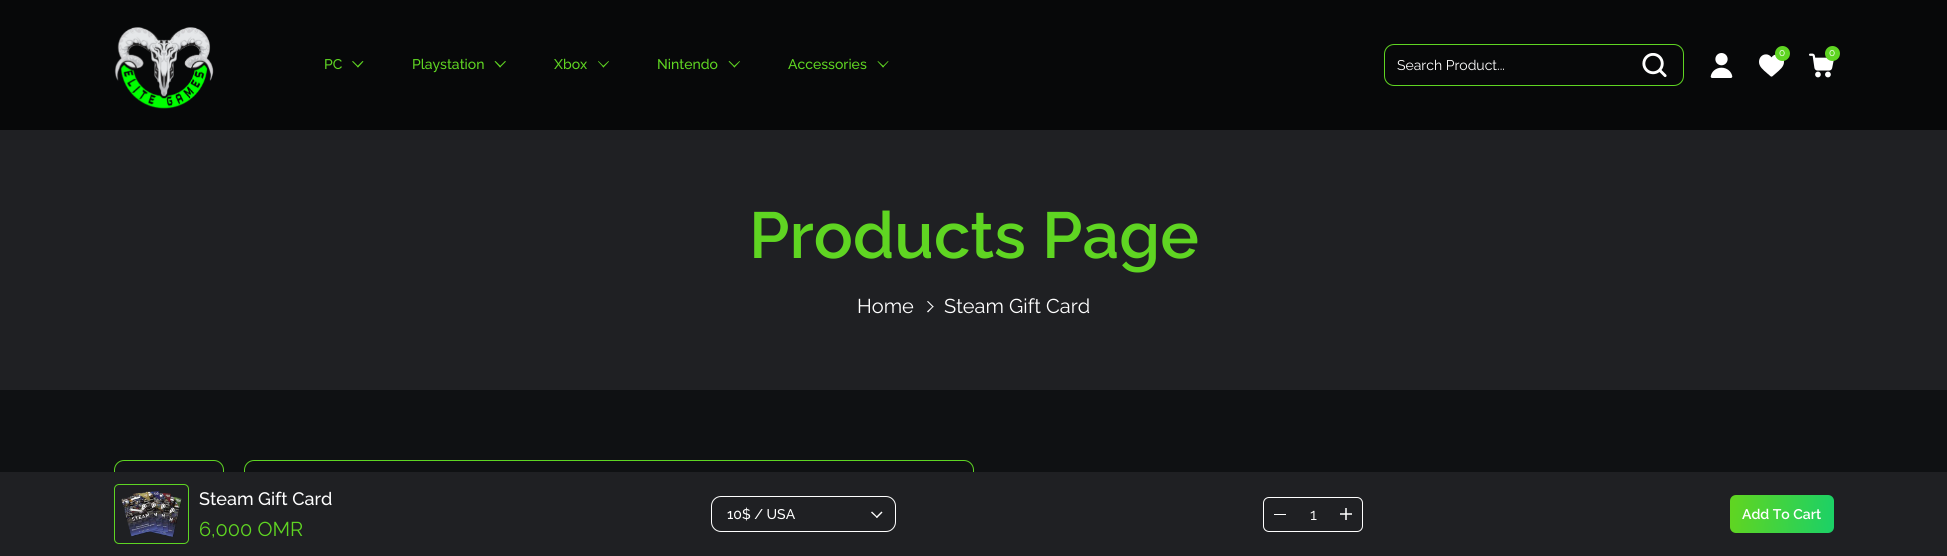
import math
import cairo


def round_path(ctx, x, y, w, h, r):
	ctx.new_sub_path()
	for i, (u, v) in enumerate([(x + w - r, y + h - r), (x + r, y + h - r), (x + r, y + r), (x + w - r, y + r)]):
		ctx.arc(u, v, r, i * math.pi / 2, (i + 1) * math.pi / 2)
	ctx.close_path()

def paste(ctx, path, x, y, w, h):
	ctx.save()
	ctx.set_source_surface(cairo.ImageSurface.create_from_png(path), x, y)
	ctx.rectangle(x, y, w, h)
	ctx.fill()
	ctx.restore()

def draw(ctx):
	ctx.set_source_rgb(0.059, 0.067, 0.078)
	ctx.paint()
	ctx.set_source_rgb(0.031, 0.035, 0.039)
	ctx.rectangle(0, 0, 1947, 130)
	ctx.fill()
	paste(ctx, 'media/1.png', 114, 27, 100, 82)
	ctx.select_font_face('Raleway Medium')
	ctx.set_font_size(14)
	ctx.set_source_rgb(0.373, 0.835, 0.133)
	ctx.move_to(324, 69)
	ctx.show_text('PC')
	ctx.new_path()
	ctx.move_to(358, 67.5)
	ctx.line_to(352, 61.5)
	ctx.line_to(353, 61)
	ctx.line_to(358.5, 66.5)
	ctx.close_path()
	ctx.fill()
	ctx.new_path()
	ctx.move_to(358, 67.5)
	ctx.line_to(357, 66.5)
	ctx.line_to(362.5, 61)
	ctx.line_to(363.5, 61.5)
	ctx.close_path()
	ctx.fill()
	ctx.move_to(412, 69)
	ctx.show_text('Playstation')
	ctx.new_path()
	ctx.move_to(500, 67.5)
	ctx.line_to(494.5, 61.5)
	ctx.line_to(495.5, 61)
	ctx.line_to(501, 66.5)
	ctx.close_path()
	ctx.fill()
	ctx.new_path()
	ctx.move_to(500, 67.5)
	ctx.line_to(499.5, 66.5)
	ctx.line_to(505, 61)
	ctx.line_to(506, 61.5)
	ctx.close_path()
	ctx.fill()
	ctx.move_to(554, 69)
	ctx.show_text('Xbox')
	ctx.new_path()
	ctx.move_to(603.5, 67.5)
	ctx.line_to(598, 61.5)
	ctx.line_to(598.5, 61)
	ctx.line_to(604, 66.5)
	ctx.close_path()
	ctx.fill()
	ctx.new_path()
	ctx.move_to(603.5, 67.5)
	ctx.line_to(602.5, 66.5)
	ctx.line_to(608.5, 61)
	ctx.line_to(609, 61.5)
	ctx.close_path()
	ctx.fill()
	ctx.move_to(657, 69)
	ctx.show_text('Nintendo')
	ctx.new_path()
	ctx.move_to(734.5, 67.5)
	ctx.line_to(728.5, 61.5)
	ctx.line_to(729.5, 61)
	ctx.line_to(735, 66.5)
	ctx.close_path()
	ctx.fill()
	ctx.new_path()
	ctx.move_to(734.5, 67.5)
	ctx.line_to(733.5, 66.5)
	ctx.line_to(739.5, 61)
	ctx.line_to(740, 61.5)
	ctx.close_path()
	ctx.fill()
	ctx.move_to(788, 69)
	ctx.show_text('Accessories')
	ctx.new_path()
	ctx.move_to(883, 67.5)
	ctx.line_to(877.5, 61.5)
	ctx.line_to(878, 61)
	ctx.line_to(884, 66.5)
	ctx.close_path()
	ctx.fill()
	ctx.new_path()
	ctx.move_to(883, 67.5)
	ctx.line_to(882.5, 66.5)
	ctx.line_to(888, 61)
	ctx.line_to(888.5, 61.5)
	ctx.close_path()
	ctx.fill()
	round_path(ctx, 1384.5, 44.5, 299, 41, 9.5)
	ctx.set_line_width(1)
	ctx.stroke()
	ctx.select_font_face('Raleway')
	ctx.set_source_rgb(1, 1, 1)
	ctx.move_to(1397, 70)
	ctx.show_text('Search Product...')
	paste(ctx, 'media/2.png', 1642, 53, 25, 25)
	paste(ctx, 'media/3.png', 1710, 53, 23, 25)
	paste(ctx, 'media/4.png', 1759, 54, 25, 23)
	ctx.set_source_rgb(0.373, 0.835, 0.133)
	ctx.arc(1782.5, 53.5, 7.5, 0, 2 * math.pi)
	ctx.fill()
	ctx.set_font_size(10)
	ctx.set_source_rgb(1, 1, 1)
	ctx.move_to(1779, 56)
	ctx.show_text('0')
	paste(ctx, 'media/5.png', 1809, 53, 25, 25)
	ctx.set_source_rgb(0.373, 0.835, 0.133)
	ctx.arc(1832.5, 53.5, 7.5, 0, 2 * math.pi)
	ctx.fill()
	ctx.set_source_rgb(1, 1, 1)
	ctx.move_to(1829, 56)
	ctx.show_text('0')
	ctx.set_source_rgb(0.122, 0.125, 0.137)
	ctx.rectangle(0, 130, 1947, 260)
	ctx.fill()
	ctx.select_font_face('Raleway SemiBold')
	ctx.set_font_size(65)
	ctx.set_source_rgb(0.373, 0.835, 0.133)
	ctx.move_to(749, 258)
	ctx.show_text('Products Page')
	ctx.select_font_face('Raleway')
	ctx.set_font_size(20)
	ctx.set_source_rgb(1, 1, 1)
	ctx.move_to(857, 313)
	ctx.show_text('Home')
	ctx.new_path()
	ctx.move_to(933.5, 306.5)
	ctx.line_to(928, 312.5)
	ctx.line_to(927, 311.5)
	ctx.line_to(933, 306)
	ctx.close_path()
	ctx.fill()
	ctx.new_path()
	ctx.move_to(933.5, 306.5)
	ctx.line_to(933, 307.5)
	ctx.line_to(927, 301.5)
	ctx.line_to(928, 301)
	ctx.close_path()
	ctx.fill()
	ctx.move_to(944, 313)
	ctx.show_text('Steam Gift Card')
	ctx.set_source_rgb(0.075, 0.082, 0.094)
	round_path(ctx, 114.5, 460.5, 109, 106, 9.5)
	ctx.fill_preserve()
	ctx.set_source_rgb(0.369, 0.835, 0.137)
	ctx.stroke()
	round_path(ctx, 244.5, 460.5, 729, 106, 9.5)
	ctx.stroke()
	ctx.set_source_rgb(0.122, 0.125, 0.137)
	ctx.rectangle(0, 472, 1947, 84)
	ctx.fill()
	round_path(ctx, 114.5, 484.5, 74, 59, 4.5)
	ctx.set_source_rgb(0.369, 0.835, 0.137)
	ctx.stroke()
	paste(ctx, 'media/6.png', 121, 491, 61, 46)
	ctx.select_font_face('Raleway Medium')
	ctx.set_font_size(18)
	ctx.set_source_rgb(1, 1, 1)
	ctx.move_to(199, 505)
	ctx.show_text('Steam Gift Card')
	ctx.select_font_face('Raleway')
	ctx.set_font_size(20)
	ctx.set_source_rgb(0.373, 0.835, 0.133)
	ctx.move_to(199, 536)
	ctx.show_text('6,000 OMR')
	round_path(ctx, 711.5, 496.5, 184, 35, 9.5)
	ctx.set_source_rgb(1, 1, 1)
	ctx.stroke()
	ctx.select_font_face('Raleway Medium')
	ctx.set_font_size(14)
	ctx.move_to(727, 519)
	ctx.show_text('10$ / USA')
	ctx.new_path()
	ctx.move_to(877, 518)
	ctx.line_to(871, 512.5)
	ctx.line_to(872, 511.5)
	ctx.line_to(877.5, 517)
	ctx.close_path()
	ctx.fill()
	ctx.new_path()
	ctx.move_to(877, 518)
	ctx.line_to(876, 517)
	ctx.line_to(881.5, 511.5)
	ctx.line_to(882.5, 512.5)
	ctx.close_path()
	ctx.fill()
	round_path(ctx, 1263.5, 497.5, 99, 34, 5.5)
	ctx.stroke()
	ctx.rectangle(1274, 514, 12, 1)
	ctx.fill()
	ctx.select_font_face('Raleway')
	ctx.set_font_size(16)
	ctx.move_to(1310, 520)
	ctx.show_text('1')
	paste(ctx, 'media/7.png', 1340, 508, 12, 12)
	gradient = cairo.LinearGradient(1722, 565, 1842, 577)
	gradient.add_color_stop_rgba(0.04, 0.373, 0.835, 0.133, 1)
	gradient.add_color_stop_rgba(0.98, 0.078, 0.816, 0.431, 1)
	ctx.set_source(gradient)
	round_path(ctx, 1730, 495, 104, 38, 6)
	ctx.fill()
	ctx.select_font_face('Raleway SemiBold')
	ctx.set_font_size(14)
	ctx.set_source_rgb(1, 1, 1)
	ctx.move_to(1742, 519)
	ctx.show_text('Add To Cart')


surface = cairo.ImageSurface(cairo.FORMAT_RGB24, 1947, 556)
ctx = cairo.Context(surface)
options = cairo.FontOptions()
options.set_hint_metrics(cairo.HINT_METRICS_OFF)
options.set_hint_style(cairo.HINT_STYLE_NONE)
ctx.set_font_options(options)
ctx.set_miter_limit(4)
draw(ctx)
surface.write_to_png('image.png')
